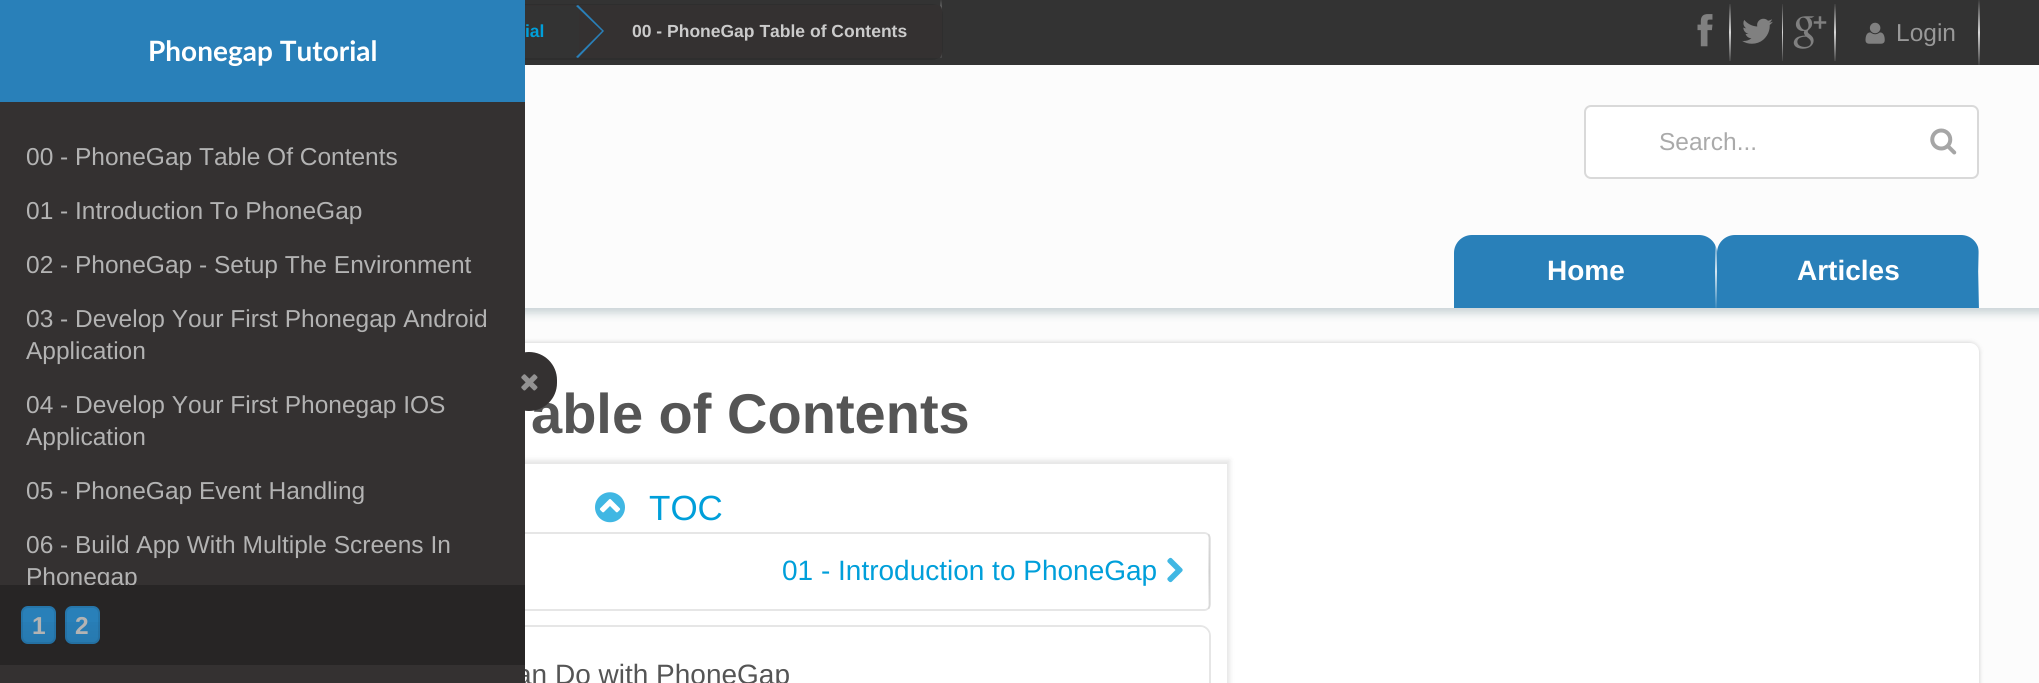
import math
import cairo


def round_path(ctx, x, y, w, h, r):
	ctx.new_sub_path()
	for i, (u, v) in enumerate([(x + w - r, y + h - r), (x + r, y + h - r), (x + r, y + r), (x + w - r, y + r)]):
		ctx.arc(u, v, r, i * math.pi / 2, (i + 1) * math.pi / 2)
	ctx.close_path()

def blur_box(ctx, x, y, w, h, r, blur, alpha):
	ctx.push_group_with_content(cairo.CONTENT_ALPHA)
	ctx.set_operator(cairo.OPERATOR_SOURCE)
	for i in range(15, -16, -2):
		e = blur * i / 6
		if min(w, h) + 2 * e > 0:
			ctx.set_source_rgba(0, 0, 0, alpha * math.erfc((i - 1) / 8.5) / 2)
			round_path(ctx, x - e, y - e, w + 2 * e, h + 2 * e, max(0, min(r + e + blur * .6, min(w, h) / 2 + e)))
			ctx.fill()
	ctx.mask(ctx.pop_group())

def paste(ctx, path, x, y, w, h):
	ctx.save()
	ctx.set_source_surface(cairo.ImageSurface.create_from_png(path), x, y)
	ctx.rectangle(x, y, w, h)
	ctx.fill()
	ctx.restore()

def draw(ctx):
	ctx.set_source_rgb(0.988, 0.988, 0.988)
	ctx.paint()
	ctx.save()
	ctx.rectangle(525, 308, 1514, 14)
	ctx.clip()
	ctx.set_source_rgb(0.784, 0.824, 0.835)
	blur_box(ctx, 5, 5, 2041, 308, 0, 4.5, 1)
	ctx.restore()
	ctx.set_source_rgb(0.2, 0.2, 0.2)
	ctx.rectangle(525, 0, 1514, 65)
	ctx.fill()
	round_path(ctx, 152, 5, 790, 54, 10)
	ctx.set_source_rgb(0.18, 0.18, 0.18)
	ctx.stroke()
	ctx.set_source_rgb(0.204, 0.192, 0.192)
	ctx.rectangle(525, 5, 54, 1)
	ctx.fill()
	ctx.select_font_face('Liberation Sans', cairo.FONT_SLANT_NORMAL, cairo.FONT_WEIGHT_BOLD)
	ctx.set_font_size(17.5)
	ctx.set_source_rgb(0, 0.624, 0.855)
	ctx.move_to(525, 37)
	ctx.show_text('ial')
	gradient = cairo.LinearGradient(941, 0, 941, 58)
	gradient.add_color_stop_rgba(0, 1, 1, 1, 0.03)
	gradient.add_color_stop_rgba(0.5, 1, 1, 1, 0.8)
	gradient.add_color_stop_rgba(1, 1, 1, 1, 0.07)
	ctx.set_source(gradient)
	ctx.rectangle(940, 0, 2, 58)
	ctx.fill()
	ctx.set_source_rgb(0.204, 0.192, 0.192)
	ctx.new_path()
	ctx.move_to(579, 5)
	ctx.line_to(937, 5)
	ctx.curve_to(940, 5, 942, 7, 942, 10)
	ctx.line_to(942, 53)
	ctx.curve_to(942, 56, 940, 58, 937, 58)
	ctx.line_to(579, 58)
	ctx.close_path()
	ctx.fill()
	ctx.set_source_rgb(0.161, 0.502, 0.725)
	ctx.new_path()
	ctx.move_to(576, 6)
	ctx.line_to(602, 31)
	ctx.line_to(576, 57)
	ctx.line_to(578, 58)
	ctx.line_to(604, 31)
	ctx.line_to(578, 5)
	ctx.close_path()
	ctx.fill()
	ctx.set_source_rgb(0.796, 0.796, 0.796)
	ctx.move_to(632, 37)
	ctx.show_text('00 - PhoneGap Table of Contents')
	paste(ctx, 'media/1.png', 1697, 14, 16, 33)
	gradient = cairo.LinearGradient(1730, 3.5, 1730, 61)
	gradient.add_color_stop_rgba(0, 0.224, 0.224, 0.224, 1)
	gradient.add_color_stop_rgba(0.5, 0.839, 0.839, 0.839, 1)
	gradient.add_color_stop_rgba(1, 0.255, 0.255, 0.255, 1)
	ctx.set_source(gradient)
	ctx.rectangle(1729, 4, 2, 57)
	ctx.fill()
	paste(ctx, 'media/2.png', 1742, 18, 31, 26)
	gradient = cairo.LinearGradient(1782, 3.5, 1782, 61)
	gradient.add_color_stop_rgba(0, 0.224, 0.224, 0.224, 1)
	gradient.add_color_stop_rgba(0.5, 0.839, 0.839, 0.839, 1)
	gradient.add_color_stop_rgba(1, 0.255, 0.255, 0.255, 1)
	ctx.set_source(gradient)
	ctx.rectangle(1782, 4, 1, 57)
	ctx.fill()
	paste(ctx, 'media/3.png', 1793, 16, 34, 33)
	gradient = cairo.LinearGradient(1835, 3.5, 1835, 61)
	gradient.add_color_stop_rgba(0, 0.224, 0.224, 0.224, 1)
	gradient.add_color_stop_rgba(0.5, 0.839, 0.839, 0.839, 1)
	gradient.add_color_stop_rgba(1, 0.255, 0.255, 0.255, 1)
	ctx.set_source(gradient)
	ctx.rectangle(1834, 4, 2, 57)
	ctx.fill()
	paste(ctx, 'media/4.png', 1865, 22, 20, 22)
	ctx.select_font_face('Liberation Sans')
	ctx.set_font_size(24.5)
	ctx.set_source_rgb(0.6, 0.6, 0.6)
	ctx.move_to(1896, 41)
	ctx.show_text('Login')
	gradient = cairo.LinearGradient(1978, 0, 1978, 65)
	gradient.add_color_stop_rgba(0, 0.224, 0.224, 0.224, 1)
	gradient.add_color_stop_rgba(0.5, 0.839, 0.839, 0.839, 1)
	gradient.add_color_stop_rgba(1, 0.255, 0.255, 0.255, 1)
	ctx.set_source(gradient)
	ctx.rectangle(1978, 0, 2, 65)
	ctx.fill()
	ctx.set_source_rgb(0, 0, 0)
	blur_box(ctx, 61, 343, 1918, 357, 9, 2.5, 0.2)
	ctx.set_source_rgb(1, 1, 1)
	round_path(ctx, 61, 343, 1918, 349, 9)
	ctx.fill()
	ctx.save()
	ctx.set_fill_rule(cairo.FILL_RULE_EVEN_ODD)
	ctx.new_path()
	ctx.move_to(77, 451)
	ctx.line_to(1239, 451)
	ctx.line_to(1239, 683)
	ctx.line_to(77, 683)
	ctx.close_path()
	ctx.move_to(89, 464)
	ctx.line_to(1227, 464)
	ctx.line_to(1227, 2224)
	ctx.line_to(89, 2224)
	ctx.close_path()
	ctx.clip()
	ctx.set_source_rgb(0, 0, 0)
	blur_box(ctx, 86, 460, 1144, 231, 0, 2.5, 0.1)
	ctx.restore()
	round_path(ctx, 106, 533, 1104, 77, 6)
	ctx.set_source_rgb(0.902, 0.902, 0.902)
	ctx.stroke()
	ctx.set_source_rgb(1, 1, 1)
	round_path(ctx, 107, 534, 1102, 75, 5)
	ctx.fill()
	round_path(ctx, 106, 626, 1104, 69, 10)
	ctx.set_source_rgb(0.902, 0.902, 0.902)
	ctx.stroke()
	ctx.set_source_rgb(1, 1, 1)
	round_path(ctx, 107, 627, 1102, 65, 9)
	ctx.fill()
	ctx.set_font_size(28)
	ctx.set_source_rgb(0.333, 0.333, 0.333)
	ctx.move_to(516, 684)
	ctx.show_text('an Do with PhoneGap')
	ctx.set_source_rgb(0.204, 0.192, 0.192)
	ctx.rectangle(0, 102, 525, 581)
	ctx.fill()
	ctx.set_source_rgb(0.161, 0.502, 0.725)
	ctx.rectangle(0, 0, 525, 102)
	ctx.fill()
	ctx.select_font_face('Lato', cairo.FONT_SLANT_NORMAL, cairo.FONT_WEIGHT_BOLD)
	ctx.set_source_rgb(1, 1, 1)
	ctx.move_to(148, 61)
	ctx.show_text('Phonegap Tutorial')
	ctx.select_font_face('Liberation Sans')
	ctx.set_font_size(24.5)
	ctx.set_source_rgb(0.702, 0.702, 0.702)
	for x, y, s in [
		(26, 165, '00 - PhoneGap Table Of Contents'),
		(26, 219, '01 - Introduction To PhoneGap'),
		(26, 273, '02 - PhoneGap - Setup The Environment'),
		(26, 327, '03 - Develop Your First Phonegap Android'),
		(26, 359, 'Application'),
		(26, 413, '04 - Develop Your First Phonegap IOS'),
		(26, 445, 'Application'),
		(26, 499, '05 - PhoneGap Event Handling'),
		(26, 553, '06 - Build App With Multiple Screens In'),
		(26, 585, 'Phonegap'),
	]:
		ctx.move_to(x, y)
		ctx.show_text(s)
	ctx.select_font_face('Liberation Sans', cairo.FONT_SLANT_NORMAL, cairo.FONT_WEIGHT_BOLD)
	ctx.set_font_size(56)
	ctx.set_source_rgb(0.333, 0.333, 0.333)
	ctx.move_to(531, 433)
	ctx.show_text('able of Contents')
	ctx.set_source_rgb(0.204, 0.192, 0.192)
	round_path(ctx, 501, 352, 56, 59, 28)
	ctx.fill()
	paste(ctx, 'media/5.png', 521, 374, 17, 17)
	ctx.set_source_rgb(0.153, 0.145, 0.145)
	ctx.rectangle(0, 585, 525, 80)
	ctx.fill()
	ctx.set_source_rgb(0.161, 0.502, 0.725)
	round_path(ctx, 21, 606, 35, 38, 7)
	ctx.fill()
	gradient = cairo.LinearGradient(39, 606, 39, 644)
	gradient.add_color_stop_rgba(0, 0, 0, 0, 0)
	gradient.add_color_stop_rgba(1, 0, 0, 0, 0.05)
	ctx.set_source(gradient)
	ctx.rectangle(21, 622, 35, 22)
	ctx.fill()
	round_path(ctx, 22, 607, 33, 36, 6)
	ctx.set_source_rgba(0, 0, 0, 0.08)
	ctx.stroke()
	ctx.set_font_size(24.5)
	ctx.set_source_rgb(0.702, 0.702, 0.702)
	ctx.move_to(32, 634)
	ctx.show_text('1')
	ctx.set_source_rgb(0.161, 0.502, 0.725)
	round_path(ctx, 65, 606, 35, 38, 7)
	ctx.fill()
	gradient = cairo.LinearGradient(82, 606, 82, 644)
	gradient.add_color_stop_rgba(0, 0, 0, 0, 0)
	gradient.add_color_stop_rgba(1, 0, 0, 0, 0.05)
	ctx.set_source(gradient)
	ctx.rectangle(65, 622, 35, 22)
	ctx.fill()
	round_path(ctx, 66, 607, 33, 36, 6)
	ctx.set_source_rgba(0, 0, 0, 0.08)
	ctx.stroke()
	ctx.set_source_rgb(0.702, 0.702, 0.702)
	ctx.move_to(75, 634)
	ctx.show_text('2')
	ctx.set_source_rgb(1, 1, 1)
	round_path(ctx, 1585, 106, 393, 72, 6)
	ctx.fill_preserve()
	ctx.set_source_rgb(0.851, 0.851, 0.851)
	ctx.stroke()
	ctx.select_font_face('Liberation Sans')
	ctx.set_source_rgb(0.667, 0.667, 0.667)
	ctx.move_to(1659, 150)
	ctx.show_text('Search...')
	paste(ctx, 'media/6.png', 1930, 128, 27, 27)
	ctx.set_source_rgb(0.161, 0.502, 0.725)
	ctx.new_path()
	ctx.move_to(1472, 235)
	ctx.line_to(1699, 235)
	ctx.curve_to(1709, 235, 1717, 243, 1717, 253)
	ctx.line_to(1717, 308)
	ctx.line_to(1454, 308)
	ctx.line_to(1454, 253)
	ctx.curve_to(1454, 243, 1462, 235, 1472, 235)
	ctx.close_path()
	ctx.fill()
	ctx.select_font_face('Liberation Sans', cairo.FONT_SLANT_NORMAL, cairo.FONT_WEIGHT_BOLD)
	ctx.set_font_size(28)
	ctx.set_source_rgb(1, 1, 1)
	ctx.move_to(1547, 280)
	ctx.show_text('Home')
	gradient = cairo.LinearGradient(1716, 235, 1716, 308)
	gradient.add_color_stop_rgba(0, 1, 1, 1, 0.03)
	gradient.add_color_stop_rgba(0.5, 1, 1, 1, 0.8)
	gradient.add_color_stop_rgba(1, 1, 1, 1, 0.07)
	ctx.set_source(gradient)
	ctx.rectangle(1715, 245, 2, 63)
	ctx.fill()
	ctx.set_source_rgb(0.161, 0.502, 0.725)
	ctx.new_path()
	ctx.move_to(1735, 235)
	ctx.line_to(1961, 235)
	ctx.curve_to(1971, 235, 1979, 243, 1979, 253)
	ctx.line_to(1979, 308)
	ctx.line_to(1717, 308)
	ctx.line_to(1717, 253)
	ctx.curve_to(1717, 243, 1725, 235, 1735, 235)
	ctx.close_path()
	ctx.fill()
	ctx.set_source_rgb(1, 1, 1)
	ctx.move_to(1797, 280)
	ctx.show_text('Articles')
	gradient = cairo.LinearGradient(1978, 235, 1978, 308)
	gradient.add_color_stop_rgba(0, 1, 1, 1, 0.03)
	gradient.add_color_stop_rgba(0.5, 1, 1, 1, 0.8)
	gradient.add_color_stop_rgba(1, 1, 1, 1, 0.07)
	ctx.set_source(gradient)
	ctx.rectangle(1978, 247, 1, 61)
	ctx.fill()
	paste(ctx, 'media/7.png', 595, 492, 30, 31)
	ctx.select_font_face('Liberation Sans')
	ctx.set_font_size(35)
	ctx.set_source_rgb(0, 0.624, 0.855)
	ctx.move_to(649, 520)
	ctx.show_text('TOC')
	ctx.set_font_size(28)
	ctx.move_to(782, 580)
	ctx.show_text('01 - Introduction to PhoneGap')
	paste(ctx, 'media/8.png', 1167, 557, 16, 26)
	gradient = cairo.LinearGradient(1208, 534, 1208, 609)
	gradient.add_color_stop_rgba(0, 0, 0, 0, 0.05)
	gradient.add_color_stop_rgba(0.5, 0, 0, 0, 0.1)
	gradient.add_color_stop_rgba(1, 0, 0, 0, 0.05)
	ctx.set_source(gradient)
	ctx.rectangle(1208, 534, 2, 75)
	ctx.fill()


surface = cairo.ImageSurface(cairo.FORMAT_RGB24, 2039, 683)
ctx = cairo.Context(surface)
options = cairo.FontOptions()
options.set_hint_metrics(cairo.HINT_METRICS_OFF)
options.set_hint_style(cairo.HINT_STYLE_NONE)
ctx.set_font_options(options)
ctx.set_miter_limit(4)
draw(ctx)
surface.write_to_png('image.png')
